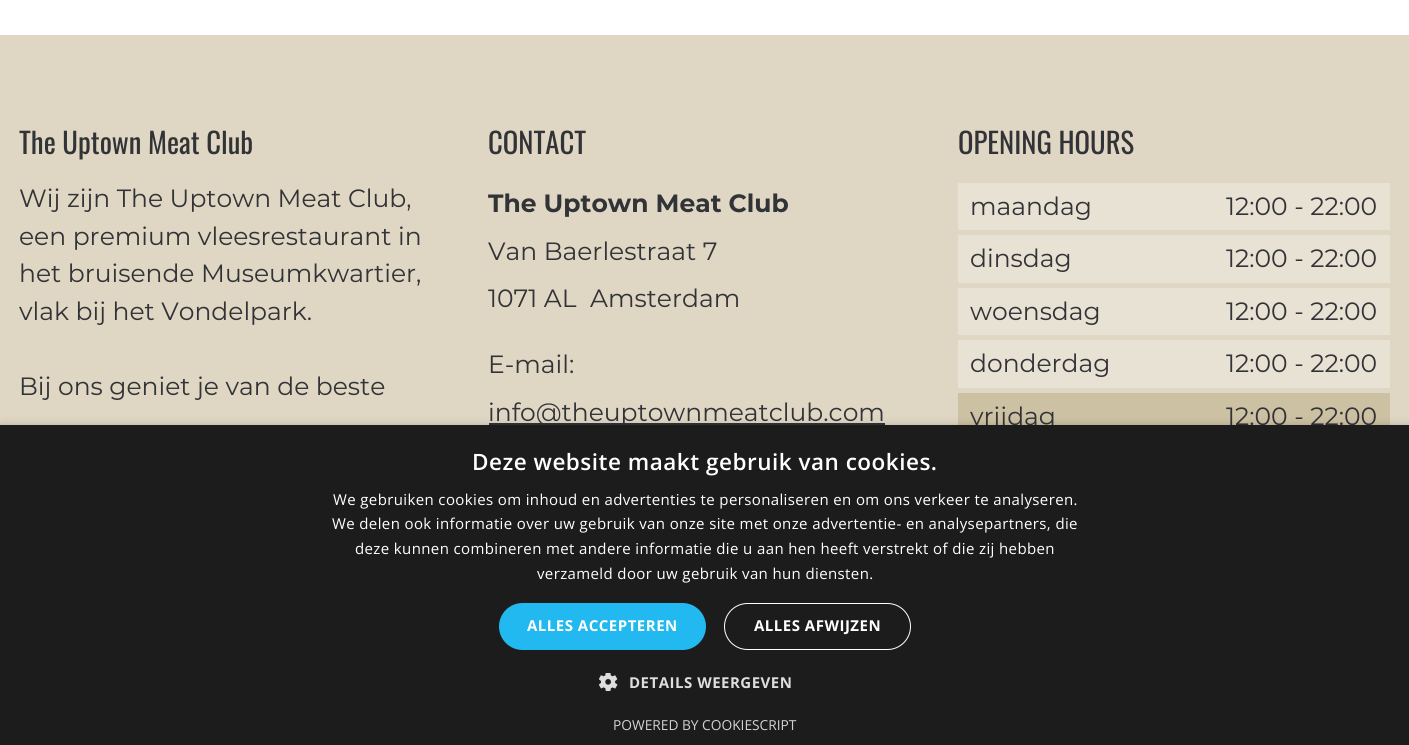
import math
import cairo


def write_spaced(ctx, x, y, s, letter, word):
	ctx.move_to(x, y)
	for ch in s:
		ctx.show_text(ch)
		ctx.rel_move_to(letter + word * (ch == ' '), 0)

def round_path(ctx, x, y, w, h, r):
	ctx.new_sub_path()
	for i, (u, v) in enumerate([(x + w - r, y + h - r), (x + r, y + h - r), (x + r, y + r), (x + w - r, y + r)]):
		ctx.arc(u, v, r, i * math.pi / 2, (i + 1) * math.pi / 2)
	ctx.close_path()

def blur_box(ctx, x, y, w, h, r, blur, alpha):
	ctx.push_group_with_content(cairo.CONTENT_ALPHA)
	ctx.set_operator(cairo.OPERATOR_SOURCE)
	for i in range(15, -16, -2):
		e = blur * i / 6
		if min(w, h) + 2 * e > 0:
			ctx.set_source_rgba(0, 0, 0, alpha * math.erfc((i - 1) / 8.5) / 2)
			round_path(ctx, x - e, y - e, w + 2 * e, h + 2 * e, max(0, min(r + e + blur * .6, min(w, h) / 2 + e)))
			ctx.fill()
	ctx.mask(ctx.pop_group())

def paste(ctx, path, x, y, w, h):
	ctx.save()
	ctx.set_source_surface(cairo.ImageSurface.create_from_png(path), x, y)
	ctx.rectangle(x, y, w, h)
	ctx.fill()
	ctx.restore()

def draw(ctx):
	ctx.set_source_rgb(0.875, 0.843, 0.769)
	ctx.paint()
	ctx.set_source_rgb(1, 1, 1)
	ctx.rectangle(0, 0, 1409, 35)
	ctx.fill()
	ctx.select_font_face('Oswald')
	ctx.set_font_size(28.75)
	ctx.set_source_rgb(0.196, 0.2, 0.212)
	ctx.move_to(19, 154)
	ctx.show_text('The Uptown Meat Club')
	ctx.select_font_face('Montserrat')
	ctx.set_font_size(25)
	for x, y, s in [
		(19, 207, 'Wij zijn The Uptown Meat Club,'),
		(19, 245, 'een premium vleesrestaurant in'),
		(19, 282, 'het bruisende Museumkwartier,'),
		(19, 320, 'vlak bij het Vondelpark.'),
		(19, 395, 'Bij ons geniet je van de beste'),
	]:
		ctx.move_to(x, y)
		ctx.show_text(s)
	ctx.select_font_face('Oswald')
	ctx.set_font_size(28.75)
	ctx.move_to(488, 154)
	ctx.show_text('CONTACT')
	ctx.select_font_face('Montserrat', cairo.FONT_SLANT_NORMAL, cairo.FONT_WEIGHT_BOLD)
	ctx.set_font_size(25)
	ctx.move_to(488, 212)
	ctx.show_text('The Uptown Meat Club')
	ctx.select_font_face('Montserrat')
	for x, y, s in [
		(488, 260, 'Van Baerlestraat 7'),
		(488, 307, '1071 AL'),
		(590, 307, 'Amsterdam'),
		(488, 373, 'E-mail:'),
	]:
		ctx.move_to(x, y)
		ctx.show_text(s)
	ctx.rectangle(489, 423, 396, 2)
	ctx.fill()
	ctx.move_to(488, 421)
	ctx.show_text('info@theuptownmeatclub.com')
	ctx.select_font_face('Oswald')
	ctx.set_font_size(28.75)
	ctx.move_to(958, 154)
	ctx.show_text('OPENING HOURS')
	ctx.set_source_rgb(0.91, 0.886, 0.835)
	ctx.rectangle(958, 183, 432, 47)
	ctx.fill()
	ctx.select_font_face('Montserrat')
	ctx.set_font_size(25)
	ctx.set_source_rgb(0.196, 0.2, 0.212)
	ctx.move_to(970, 215)
	ctx.show_text('maandag')
	ctx.move_to(1226, 215)
	ctx.show_text('12:00 - 22:00')
	ctx.set_source_rgb(0.91, 0.886, 0.835)
	ctx.rectangle(958, 235, 432, 48)
	ctx.fill()
	ctx.set_source_rgb(0.196, 0.2, 0.212)
	ctx.move_to(970, 267)
	ctx.show_text('dinsdag')
	ctx.move_to(1226, 267)
	ctx.show_text('12:00 - 22:00')
	ctx.set_source_rgb(0.91, 0.886, 0.835)
	ctx.rectangle(958, 288, 432, 47)
	ctx.fill()
	ctx.set_source_rgb(0.196, 0.2, 0.212)
	ctx.move_to(970, 320)
	ctx.show_text('woensdag')
	ctx.move_to(1226, 320)
	ctx.show_text('12:00 - 22:00')
	ctx.set_source_rgb(0.91, 0.886, 0.835)
	ctx.rectangle(958, 340, 432, 48)
	ctx.fill()
	ctx.set_source_rgb(0.196, 0.2, 0.212)
	ctx.move_to(970, 372)
	ctx.show_text('donderdag')
	ctx.move_to(1226, 372)
	ctx.show_text('12:00 - 22:00')
	ctx.set_source_rgb(0.804, 0.757, 0.639)
	ctx.rectangle(958, 393, 432, 32)
	ctx.fill()
	ctx.set_source_rgb(0.196, 0.2, 0.212)
	ctx.move_to(970, 425)
	ctx.show_text('vrijdag')
	ctx.move_to(1226, 425)
	ctx.show_text('12:00 - 22:00')
	ctx.set_source_rgb(0, 0, 0)
	blur_box(ctx, 1, 428, 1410, 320, 0, 5, 0.35)
	ctx.set_source_rgb(0.11, 0.11, 0.11)
	ctx.rectangle(0, 425, 1409, 320)
	ctx.fill()
	ctx.select_font_face('Open Sans SemiBold')
	ctx.set_font_size(22.5)
	ctx.set_source_rgb(1, 1, 1)
	write_spaced(ctx, 472, 470, 'Deze website maakt gebruik van cookies.', 0.5, 0)
	ctx.select_font_face('Open Sans')
	ctx.set_font_size(15)
	for x, y, s in [
		(333, 505, 'We gebruiken cookies om inhoud en advertenties te personaliseren en om ons verkeer te analyseren.'),
		(332, 529, 'We delen ook informatie over uw gebruik van onze site met onze advertentie- en analysepartners, die'),
		(355, 554, 'deze kunnen combineren met andere informatie die u aan hen heeft verstrekt of die zij hebben'),
		(537, 579, 'verzameld door uw gebruik van hun diensten.'),
	]:
		write_spaced(ctx, x, y, s, 0.38, 0)
	ctx.set_source_rgb(0.133, 0.722, 0.941)
	round_path(ctx, 499, 603, 207, 47, 23.5)
	ctx.fill()
	ctx.select_font_face('Open Sans', cairo.FONT_SLANT_NORMAL, cairo.FONT_WEIGHT_BOLD)
	ctx.set_source_rgb(1, 1, 1)
	write_spaced(ctx, 527, 631, 'ALLES ACCEPTEREN', 0.5, 0)
	round_path(ctx, 724.5, 603.5, 186, 46, 23)
	ctx.set_line_width(1)
	ctx.stroke()
	write_spaced(ctx, 754, 631, 'ALLES AFWIJZEN', 0.5, 0)
	paste(ctx, 'media/1.png', 599, 673, 19, 18)
	ctx.set_source_rgb(0.867, 0.867, 0.867)
	write_spaced(ctx, 629, 688, 'DETAILS WEERGEVEN', 0.5, 0)
	ctx.select_font_face('Open Sans')
	ctx.set_font_size(13.75)
	ctx.set_source_rgb(0.824, 0.824, 0.824)
	ctx.move_to(613, 730)
	ctx.show_text('POWERED BY COOKIESCRIPT')


surface = cairo.ImageSurface(cairo.FORMAT_RGB24, 1409, 745)
ctx = cairo.Context(surface)
options = cairo.FontOptions()
options.set_hint_metrics(cairo.HINT_METRICS_OFF)
options.set_hint_style(cairo.HINT_STYLE_NONE)
ctx.set_font_options(options)
ctx.set_miter_limit(4)
draw(ctx)
surface.write_to_png('image.png')
